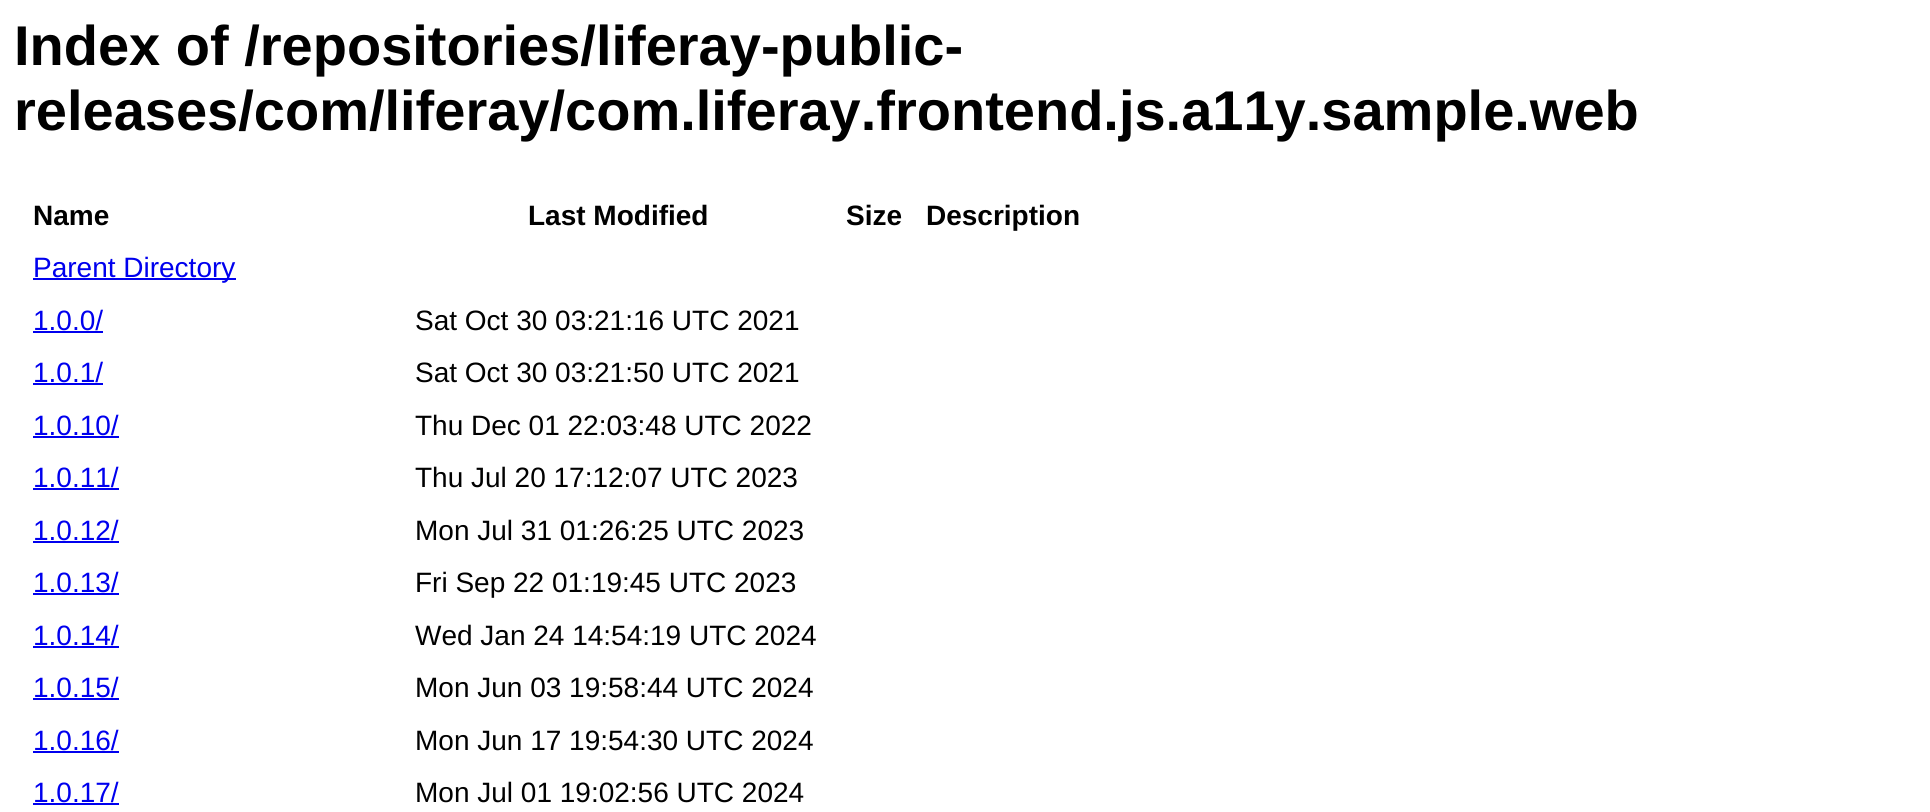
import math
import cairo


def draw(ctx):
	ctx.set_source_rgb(1, 1, 1)
	ctx.paint()
	ctx.select_font_face('Liberation Sans', cairo.FONT_SLANT_NORMAL, cairo.FONT_WEIGHT_BOLD)
	ctx.set_font_size(56)
	ctx.set_source_rgb(0, 0, 0)
	ctx.move_to(14, 65)
	ctx.show_text('Index of /repositories/liferay-public-')
	ctx.move_to(14, 130)
	ctx.show_text('releases/com/liferay/com.liferay.frontend.js.a11y.sample.web')
	ctx.set_font_size(28)
	for x, y, s in [
		(33, 225, 'Name'),
		(528, 225, 'Last Modified'),
		(846, 225, 'Size'),
		(926, 225, 'Description'),
	]:
		ctx.move_to(x, y)
		ctx.show_text(s)
	ctx.set_source_rgb(0, 0, 0.933)
	ctx.rectangle(33, 278, 203, 2)
	ctx.fill()
	ctx.select_font_face('Liberation Sans')
	ctx.move_to(33, 277)
	ctx.show_text('Parent Directory')
	ctx.move_to(33, 330)
	ctx.show_text('1.0.0/')
	ctx.rectangle(33, 331, 70, 2)
	ctx.fill()
	ctx.set_source_rgb(0, 0, 0)
	ctx.move_to(415, 330)
	ctx.show_text('Sat Oct 30 03:21:16 UTC 2021')
	ctx.set_source_rgb(0, 0, 0.933)
	ctx.move_to(33, 382)
	ctx.show_text('1.0.1/')
	ctx.rectangle(33, 383, 70, 2)
	ctx.fill()
	ctx.set_source_rgb(0, 0, 0)
	ctx.move_to(415, 382)
	ctx.show_text('Sat Oct 30 03:21:50 UTC 2021')
	ctx.set_source_rgb(0, 0, 0.933)
	ctx.move_to(33, 435)
	ctx.show_text('1.0.10/')
	ctx.rectangle(33, 436, 86, 2)
	ctx.fill()
	ctx.set_source_rgb(0, 0, 0)
	ctx.move_to(415, 435)
	ctx.show_text('Thu Dec 01 22:03:48 UTC 2022')
	ctx.set_source_rgb(0, 0, 0.933)
	ctx.move_to(33, 487)
	ctx.show_text('1.0.11/')
	ctx.rectangle(33, 488, 86, 2)
	ctx.fill()
	ctx.set_source_rgb(0, 0, 0)
	ctx.move_to(415, 487)
	ctx.show_text('Thu Jul 20 17:12:07 UTC 2023')
	ctx.set_source_rgb(0, 0, 0.933)
	ctx.move_to(33, 540)
	ctx.show_text('1.0.12/')
	ctx.rectangle(33, 541, 86, 2)
	ctx.fill()
	ctx.set_source_rgb(0, 0, 0)
	ctx.move_to(415, 540)
	ctx.show_text('Mon Jul 31 01:26:25 UTC 2023')
	ctx.set_source_rgb(0, 0, 0.933)
	ctx.move_to(33, 592)
	ctx.show_text('1.0.13/')
	ctx.rectangle(33, 593, 86, 2)
	ctx.fill()
	ctx.set_source_rgb(0, 0, 0)
	ctx.move_to(415, 592)
	ctx.show_text('Fri Sep 22 01:19:45 UTC 2023')
	ctx.set_source_rgb(0, 0, 0.933)
	ctx.move_to(33, 645)
	ctx.show_text('1.0.14/')
	ctx.rectangle(33, 646, 86, 2)
	ctx.fill()
	ctx.set_source_rgb(0, 0, 0)
	ctx.move_to(415, 645)
	ctx.show_text('Wed Jan 24 14:54:19 UTC 2024')
	ctx.set_source_rgb(0, 0, 0.933)
	ctx.move_to(33, 697)
	ctx.show_text('1.0.15/')
	ctx.rectangle(33, 698, 86, 2)
	ctx.fill()
	ctx.set_source_rgb(0, 0, 0)
	ctx.move_to(415, 697)
	ctx.show_text('Mon Jun 03 19:58:44 UTC 2024')
	ctx.set_source_rgb(0, 0, 0.933)
	ctx.move_to(33, 750)
	ctx.show_text('1.0.16/')
	ctx.rectangle(33, 751, 86, 2)
	ctx.fill()
	ctx.set_source_rgb(0, 0, 0)
	ctx.move_to(415, 750)
	ctx.show_text('Mon Jun 17 19:54:30 UTC 2024')
	ctx.set_source_rgb(0, 0, 0.933)
	ctx.move_to(33, 802)
	ctx.show_text('1.0.17/')
	ctx.rectangle(33, 803, 86, 2)
	ctx.fill()
	ctx.set_source_rgb(0, 0, 0)
	ctx.move_to(415, 802)
	ctx.show_text('Mon Jul 01 19:02:56 UTC 2024')


surface = cairo.ImageSurface(cairo.FORMAT_RGB24, 1930, 812)
ctx = cairo.Context(surface)
options = cairo.FontOptions()
options.set_hint_metrics(cairo.HINT_METRICS_OFF)
options.set_hint_style(cairo.HINT_STYLE_NONE)
ctx.set_font_options(options)
ctx.set_miter_limit(4)
draw(ctx)
surface.write_to_png('image.png')
